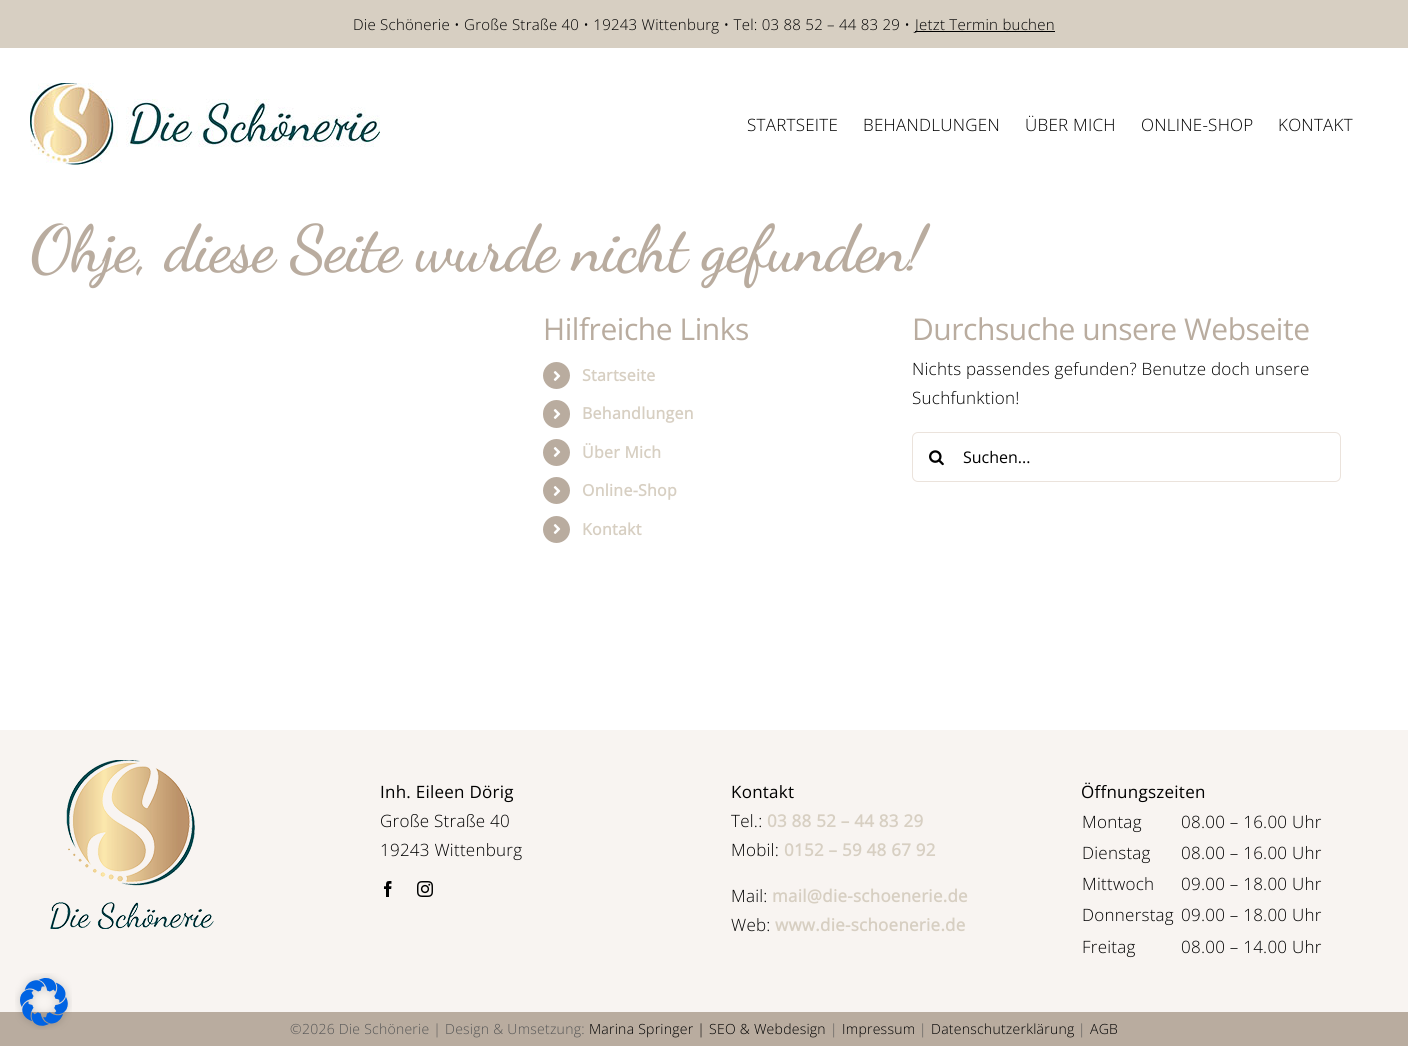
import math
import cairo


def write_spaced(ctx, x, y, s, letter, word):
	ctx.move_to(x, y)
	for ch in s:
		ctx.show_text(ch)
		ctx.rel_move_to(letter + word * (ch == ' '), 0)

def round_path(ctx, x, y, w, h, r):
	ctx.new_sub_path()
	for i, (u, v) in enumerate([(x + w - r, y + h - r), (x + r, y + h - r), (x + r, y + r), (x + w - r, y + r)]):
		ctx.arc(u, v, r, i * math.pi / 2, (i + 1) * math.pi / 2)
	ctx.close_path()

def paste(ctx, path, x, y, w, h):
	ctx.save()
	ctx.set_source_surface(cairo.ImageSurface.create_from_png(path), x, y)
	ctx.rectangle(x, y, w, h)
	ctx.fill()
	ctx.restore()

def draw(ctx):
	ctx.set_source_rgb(1, 1, 1)
	ctx.paint()
	ctx.set_source_rgb(0.843, 0.812, 0.761)
	ctx.rectangle(0, 0, 1408, 48)
	ctx.fill()
	ctx.select_font_face('Open Sans Light')
	ctx.set_font_size(15)
	ctx.set_source_rgb(0, 0, 0)
	write_spaced(ctx, 353, 30, 'Die Schönerie • Große Straße 40 • 19243 Wittenburg • Tel: 03 88 52 – 44 83 29 •', 0.25, 0)
	ctx.rectangle(915, 31, 140, 1)
	ctx.fill()
	write_spaced(ctx, 915, 30, 'Jetzt Termin buchen', 0.25, 0)
	paste(ctx, 'media/1.png', 30, 83, 350, 82)
	ctx.set_font_size(17)
	for x, y, s in [
		(747, 131, 'STARTSEITE'),
		(863, 131, 'BEHANDLUNGEN'),
		(1025, 131, 'ÜBER MICH'),
		(1141, 131, 'ONLINE-SHOP'),
		(1278, 131, 'KONTAKT'),
	]:
		write_spaced(ctx, x, y, s, 0.25, 0)
	ctx.select_font_face('Dancing Script SemiBold')
	ctx.set_font_size(65)
	ctx.set_source_rgb(0.725, 0.675, 0.624)
	write_spaced(ctx, 30, 270, 'Ohje, diese Seite wurde nicht gefunden!', -0.95, 0)
	ctx.select_font_face('Open Sans')
	ctx.set_font_size(30)
	write_spaced(ctx, 543, 340, 'Hilfreiche Links', -0.45, 0)
	ctx.new_path()
	ctx.arc(556.5, 375.5, 13.5, 0, 2 * math.pi)
	ctx.fill()
	paste(ctx, 'media/2.png', 553, 371, 8, 10)
	ctx.select_font_face('Open Sans', cairo.FONT_SLANT_NORMAL, cairo.FONT_WEIGHT_BOLD)
	ctx.set_font_size(16)
	ctx.set_source_rgb(0.843, 0.812, 0.761)
	write_spaced(ctx, 582, 381, 'Startseite', 0.25, 0)
	ctx.set_source_rgb(0.725, 0.675, 0.624)
	round_path(ctx, 543, 400, 27, 28, 13.5)
	ctx.fill()
	paste(ctx, 'media/2.png', 553, 409, 8, 10)
	ctx.set_source_rgb(0.843, 0.812, 0.761)
	write_spaced(ctx, 582, 419, 'Behandlungen', 0.25, 0)
	ctx.set_source_rgb(0.725, 0.675, 0.624)
	ctx.new_path()
	ctx.arc(556.5, 452.5, 13.5, 0, 2 * math.pi)
	ctx.fill()
	paste(ctx, 'media/2.png', 553, 447, 8, 10)
	ctx.set_source_rgb(0.843, 0.812, 0.761)
	write_spaced(ctx, 582, 458, 'Über Mich', 0.25, 0)
	ctx.set_source_rgb(0.725, 0.675, 0.624)
	ctx.new_path()
	ctx.arc(556.5, 490.5, 13.5, 0, 2 * math.pi)
	ctx.fill()
	paste(ctx, 'media/2.png', 553, 486, 8, 10)
	ctx.set_source_rgb(0.843, 0.812, 0.761)
	write_spaced(ctx, 582, 496, 'Online-Shop', 0.25, 0)
	ctx.set_source_rgb(0.725, 0.675, 0.624)
	ctx.new_path()
	ctx.arc(556.5, 529.5, 13.5, 0, 2 * math.pi)
	ctx.fill()
	paste(ctx, 'media/2.png', 553, 524, 8, 10)
	ctx.set_source_rgb(0.843, 0.812, 0.761)
	write_spaced(ctx, 582, 535, 'Kontakt', 0.25, 0)
	ctx.select_font_face('Open Sans')
	ctx.set_font_size(30)
	ctx.set_source_rgb(0.725, 0.675, 0.624)
	write_spaced(ctx, 912, 340, 'Durchsuche unsere Webseite', -0.45, 0)
	ctx.select_font_face('Open Sans Light')
	ctx.set_font_size(17)
	ctx.set_source_rgb(0, 0, 0)
	write_spaced(ctx, 912, 375, 'Nichts passendes gefunden? Benutze doch unsere', 0.25, 0)
	write_spaced(ctx, 912, 404, 'Suchfunktion!', 0.25, 0)
	round_path(ctx, 912.5, 432.5, 428, 49, 5.5)
	ctx.set_source_rgb(0.918, 0.89, 0.863)
	ctx.set_line_width(1)
	ctx.stroke()
	paste(ctx, 'media/3.png', 929, 450, 15, 16)
	ctx.select_font_face('Open Sans')
	ctx.set_font_size(16)
	ctx.set_source_rgb(0, 0, 0)
	ctx.move_to(963, 463)
	ctx.show_text('Suchen...')
	ctx.set_source_rgb(0.969, 0.957, 0.945)
	ctx.rectangle(0, 730, 1408, 282)
	ctx.fill()
	paste(ctx, 'media/4.png', 50, 760, 164, 169)
	ctx.set_font_size(17)
	ctx.set_source_rgb(0, 0, 0)
	write_spaced(ctx, 380, 798, 'Inh. Eileen Dörig', 0.25, 0)
	ctx.select_font_face('Open Sans Light')
	write_spaced(ctx, 380, 827, 'Große Straße 40', 0.25, 0)
	write_spaced(ctx, 380, 856, '19243 Wittenburg', 0.25, 0)
	paste(ctx, 'media/5.png', 384, 881, 8, 16)
	paste(ctx, 'media/6.png', 417, 881, 16, 16)
	ctx.select_font_face('Open Sans')
	write_spaced(ctx, 731, 798, 'Kontakt', 0.25, 0)
	ctx.select_font_face('Open Sans Light')
	write_spaced(ctx, 731, 827, 'Tel.:', 0.25, 0)
	ctx.select_font_face('Open Sans', cairo.FONT_SLANT_NORMAL, cairo.FONT_WEIGHT_BOLD)
	ctx.set_source_rgb(0.843, 0.812, 0.761)
	write_spaced(ctx, 767, 827, '03 88 52 – 44 83 29', 0.25, 0)
	ctx.select_font_face('Open Sans Light')
	ctx.set_source_rgb(0, 0, 0)
	write_spaced(ctx, 731, 856, 'Mobil:', 0.25, 0)
	ctx.select_font_face('Open Sans', cairo.FONT_SLANT_NORMAL, cairo.FONT_WEIGHT_BOLD)
	ctx.set_source_rgb(0.843, 0.812, 0.761)
	write_spaced(ctx, 784, 856, '0152 – 59 48 67 92', 0.25, 0)
	ctx.select_font_face('Open Sans Light')
	ctx.set_source_rgb(0, 0, 0)
	write_spaced(ctx, 731, 902, 'Mail:', 0.25, 0)
	ctx.select_font_face('Open Sans', cairo.FONT_SLANT_NORMAL, cairo.FONT_WEIGHT_BOLD)
	ctx.set_source_rgb(0.843, 0.812, 0.761)
	write_spaced(ctx, 772, 902, 'mail@die-schoenerie.de', 0.25, 0)
	ctx.select_font_face('Open Sans Light')
	ctx.set_source_rgb(0, 0, 0)
	write_spaced(ctx, 731, 931, 'Web:', 0.25, 0)
	ctx.select_font_face('Open Sans', cairo.FONT_SLANT_NORMAL, cairo.FONT_WEIGHT_BOLD)
	ctx.set_source_rgb(0.843, 0.812, 0.761)
	write_spaced(ctx, 775, 931, 'www.die-schoenerie.de', 0.25, 0)
	ctx.select_font_face('Open Sans')
	ctx.set_source_rgb(0, 0, 0)
	write_spaced(ctx, 1081, 798, 'Öffnungszeiten', 0.25, 0)
	ctx.select_font_face('Open Sans Light')
	for x, y, s in [
		(1082, 828, 'Montag'),
		(1181, 828, '08.00 – 16.00 Uhr'),
		(1082, 859, 'Dienstag'),
		(1181, 859, '08.00 – 16.00 Uhr'),
		(1082, 890, 'Mittwoch'),
		(1181, 890, '09.00 – 18.00 Uhr'),
		(1082, 921, 'Donnerstag'),
		(1181, 921, '09.00 – 18.00 Uhr'),
		(1082, 953, 'Freitag'),
		(1181, 953, '08.00 – 14.00 Uhr'),
	]:
		write_spaced(ctx, x, y, s, 0.25, 0)
	ctx.set_source_rgb(0.725, 0.675, 0.624)
	ctx.rectangle(0, 1012, 1408, 34)
	ctx.fill()
	ctx.set_font_size(14)
	ctx.set_source_rgb(0.337, 0.337, 0.337)
	write_spaced(ctx, 290, 1034, '©2026 Die Schönerie | Design & Umsetzung:', 0.25, 0)
	ctx.set_source_rgb(0, 0, 0)
	write_spaced(ctx, 589, 1034, 'Marina Springer | SEO & Webdesign', 0.25, 0)
	ctx.set_source_rgb(0.337, 0.337, 0.337)
	write_spaced(ctx, 830, 1034, '|', 0.25, 0)
	ctx.set_source_rgb(0, 0, 0)
	write_spaced(ctx, 842, 1034, 'Impressum', 0.25, 0)
	ctx.set_source_rgb(0.337, 0.337, 0.337)
	write_spaced(ctx, 919, 1034, '|', 0.25, 0)
	ctx.set_source_rgb(0, 0, 0)
	write_spaced(ctx, 931, 1034, 'Datenschutzerklärung', 0.25, 0)
	ctx.set_source_rgb(0.337, 0.337, 0.337)
	write_spaced(ctx, 1078, 1034, '|', 0.25, 0)
	ctx.set_source_rgb(0, 0, 0)
	write_spaced(ctx, 1090, 1034, 'AGB', 0.25, 0)
	paste(ctx, 'media/7.png', 15, 973, 57, 57)


surface = cairo.ImageSurface(cairo.FORMAT_RGB24, 1408, 1046)
ctx = cairo.Context(surface)
options = cairo.FontOptions()
options.set_hint_metrics(cairo.HINT_METRICS_OFF)
options.set_hint_style(cairo.HINT_STYLE_NONE)
ctx.set_font_options(options)
ctx.set_miter_limit(4)
draw(ctx)
surface.write_to_png('image.png')
